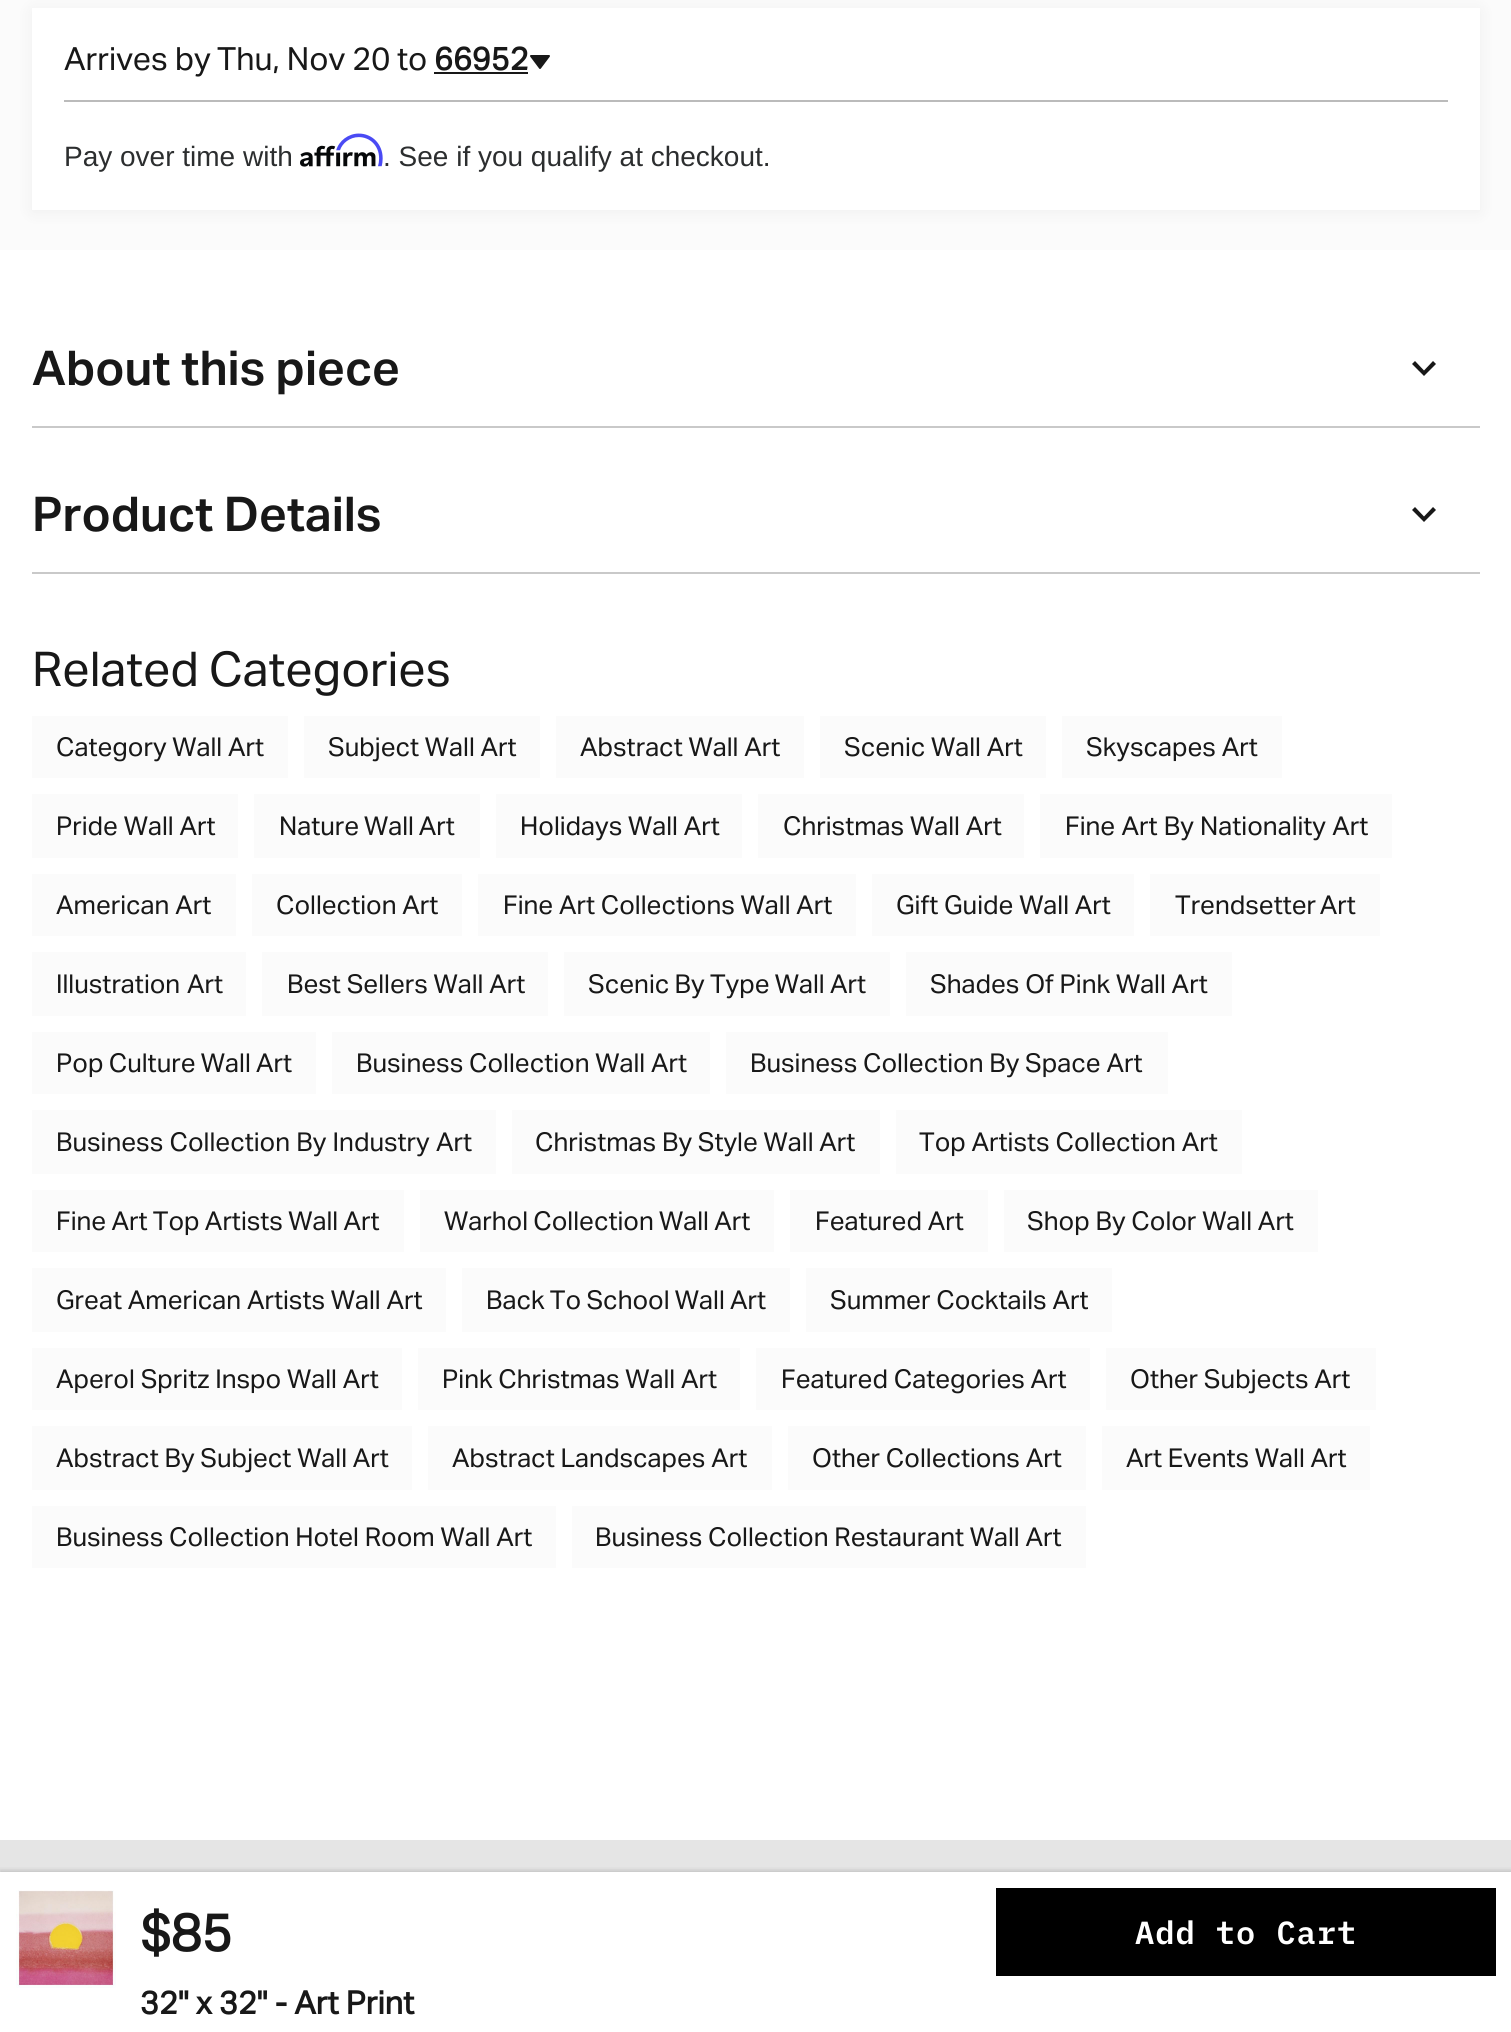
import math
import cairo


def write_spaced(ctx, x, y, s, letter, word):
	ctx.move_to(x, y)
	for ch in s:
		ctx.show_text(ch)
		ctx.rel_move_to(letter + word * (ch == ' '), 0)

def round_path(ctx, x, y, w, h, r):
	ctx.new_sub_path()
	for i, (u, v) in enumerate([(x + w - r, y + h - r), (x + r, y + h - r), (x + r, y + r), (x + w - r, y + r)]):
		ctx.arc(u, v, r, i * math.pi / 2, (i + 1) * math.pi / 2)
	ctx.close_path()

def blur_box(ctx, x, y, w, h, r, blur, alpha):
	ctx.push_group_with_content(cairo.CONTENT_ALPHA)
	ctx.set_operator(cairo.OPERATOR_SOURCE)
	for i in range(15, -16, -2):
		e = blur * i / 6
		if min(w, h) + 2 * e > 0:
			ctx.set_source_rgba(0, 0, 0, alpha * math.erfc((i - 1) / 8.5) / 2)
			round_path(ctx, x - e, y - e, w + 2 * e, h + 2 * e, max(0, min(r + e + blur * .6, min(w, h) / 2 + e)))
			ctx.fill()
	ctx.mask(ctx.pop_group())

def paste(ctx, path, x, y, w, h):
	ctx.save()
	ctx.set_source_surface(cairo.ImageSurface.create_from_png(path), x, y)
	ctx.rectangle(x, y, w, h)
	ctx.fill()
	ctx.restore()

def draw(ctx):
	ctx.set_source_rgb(0.984, 0.984, 0.984)
	ctx.paint()
	ctx.set_source_rgb(0, 0, 0)
	blur_box(ctx, 32, 10, 1448, 202, 0, 8, 0.05)
	ctx.set_source_rgb(1, 1, 1)
	ctx.rectangle(32, 8, 1448, 202)
	ctx.fill()
	ctx.set_source_rgb(0.733, 0.733, 0.733)
	ctx.rectangle(64, 100, 1384, 2)
	ctx.fill()
	ctx.select_font_face('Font')
	ctx.set_font_size(32)
	ctx.set_source_rgb(0.094, 0.094, 0.094)
	for x, y, s in [
		(64, 70, 'Arrives by'),
		(217, 70, 'Thu, Nov 20'),
		(397, 70, 'to'),
	]:
		ctx.move_to(x, y)
		ctx.show_text(s)
	ctx.select_font_face('Font', cairo.FONT_SLANT_NORMAL, cairo.FONT_WEIGHT_BOLD)
	ctx.move_to(434, 70)
	ctx.show_text('66952')
	ctx.rectangle(434, 72, 94, 2)
	ctx.fill()
	paste(ctx, 'media/1.png', 530, 55, 20, 14)
	ctx.select_font_face('Liberation Sans')
	ctx.set_font_size(28)
	ctx.set_source_rgb(0.173, 0.18, 0.184)
	ctx.move_to(64, 166)
	ctx.show_text('Pay over time with')
	paste(ctx, 'media/3.png', 300, 145, 76, 22)
	paste(ctx, 'media/2.png', 336, 133, 47, 34)
	ctx.move_to(383, 166)
	ctx.show_text('. See if you qualify at checkout.')
	ctx.set_source_rgb(1, 1, 1)
	ctx.rectangle(0, 1872, 1511, 160)
	ctx.fill()
	ctx.set_source_rgb(0.898, 0.898, 0.898)
	ctx.rectangle(0, 1840, 1511, 32)
	ctx.fill()
	ctx.save()
	ctx.rectangle(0, 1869, 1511, 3)
	ctx.clip()
	ctx.set_source_rgb(0, 0, 0)
	blur_box(ctx, 0, 1870, 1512, 160, 0, 2, 0.06)
	ctx.restore()
	ctx.save()
	ctx.rectangle(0, 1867, 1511, 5)
	ctx.clip()
	ctx.set_source_rgb(0, 0, 0)
	blur_box(ctx, 0, 1870, 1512, 160, 0, 3, 0.1)
	ctx.restore()
	paste(ctx, 'media/4.png', 16, 1890, 100, 98)
	ctx.select_font_face('Font', cairo.FONT_SLANT_NORMAL, cairo.FONT_WEIGHT_BOLD)
	ctx.set_font_size(52)
	ctx.set_source_rgb(0.094, 0.094, 0.094)
	ctx.move_to(140, 1951)
	ctx.show_text('$85')
	ctx.set_source_rgb(0, 0, 0)
	ctx.rectangle(996, 1888, 500, 88)
	ctx.fill()
	ctx.select_font_face('IBM Plex Mono SemiBold')
	ctx.set_font_size(32)
	ctx.set_source_rgb(1, 1, 1)
	write_spaced(ctx, 1135, 1944, 'Add to Cart', 1, 0)
	ctx.select_font_face('Font', cairo.FONT_SLANT_NORMAL, cairo.FONT_WEIGHT_BOLD)
	ctx.set_source_rgb(0.094, 0.094, 0.094)
	ctx.move_to(140, 2014)
	ctx.show_text('32" x 32" - Art Print')
	ctx.set_source_rgb(1, 1, 1)
	ctx.rectangle(0, 250, 1511, 1590)
	ctx.fill()
	ctx.select_font_face('Font SemiBold')
	ctx.set_font_size(48)
	ctx.set_source_rgb(0.094, 0.094, 0.094)
	ctx.move_to(32, 385)
	ctx.show_text('About this piece')
	ctx.new_path()
	ctx.move_to(1433, 361)
	ctx.line_to(1424, 370.5)
	ctx.line_to(1415, 361)
	ctx.line_to(1412, 364)
	ctx.line_to(1424, 376)
	ctx.line_to(1436, 364)
	ctx.close_path()
	ctx.fill()
	ctx.set_source_rgb(0.788, 0.788, 0.788)
	ctx.rectangle(32, 426, 1448, 2)
	ctx.fill()
	ctx.rectangle(32, 572, 1448, 2)
	ctx.fill()
	ctx.set_source_rgb(0.094, 0.094, 0.094)
	ctx.move_to(32, 531)
	ctx.show_text('Product Details')
	ctx.new_path()
	ctx.move_to(1433, 507)
	ctx.line_to(1424, 516.5)
	ctx.line_to(1415, 507)
	ctx.line_to(1412, 510)
	ctx.line_to(1424, 522)
	ctx.line_to(1436, 510)
	ctx.close_path()
	ctx.fill()
	ctx.select_font_face('Font')
	write_spaced(ctx, 32, 686, 'Related Categories', 0, -1)
	ctx.set_source_rgb(0.984, 0.984, 0.984)
	ctx.rectangle(32, 716, 256, 62)
	ctx.fill()
	ctx.set_font_size(26)
	ctx.set_source_rgb(0.094, 0.094, 0.094)
	ctx.move_to(56, 756)
	ctx.show_text('Category Wall Art')
	ctx.set_source_rgb(0.984, 0.984, 0.984)
	ctx.rectangle(304, 716, 236, 62)
	ctx.fill()
	ctx.set_source_rgb(0.094, 0.094, 0.094)
	ctx.move_to(328, 756)
	ctx.show_text('Subject Wall Art')
	ctx.set_source_rgb(0.984, 0.984, 0.984)
	ctx.rectangle(556, 716, 248, 62)
	ctx.fill()
	ctx.set_source_rgb(0.094, 0.094, 0.094)
	ctx.move_to(580, 756)
	ctx.show_text('Abstract Wall Art')
	ctx.set_source_rgb(0.984, 0.984, 0.984)
	ctx.rectangle(820, 716, 226, 62)
	ctx.fill()
	ctx.set_source_rgb(0.094, 0.094, 0.094)
	ctx.move_to(844, 756)
	ctx.show_text('Scenic Wall Art')
	ctx.set_source_rgb(0.984, 0.984, 0.984)
	ctx.rectangle(1062, 716, 220, 62)
	ctx.fill()
	ctx.set_source_rgb(0.094, 0.094, 0.094)
	ctx.move_to(1086, 756)
	ctx.show_text('Skyscapes Art')
	ctx.set_source_rgb(0.984, 0.984, 0.984)
	ctx.rectangle(32, 794, 206, 64)
	ctx.fill()
	ctx.set_source_rgb(0.094, 0.094, 0.094)
	ctx.move_to(56, 835)
	ctx.show_text('Pride Wall Art')
	ctx.set_source_rgb(0.984, 0.984, 0.984)
	ctx.rectangle(254, 794, 226, 64)
	ctx.fill()
	ctx.set_source_rgb(0.094, 0.094, 0.094)
	write_spaced(ctx, 279, 835, 'Nature Wall Art', 0, -1)
	ctx.set_source_rgb(0.984, 0.984, 0.984)
	ctx.rectangle(496, 794, 246, 64)
	ctx.fill()
	ctx.set_source_rgb(0.094, 0.094, 0.094)
	ctx.move_to(520, 835)
	ctx.show_text('Holidays Wall Art')
	ctx.set_source_rgb(0.984, 0.984, 0.984)
	ctx.rectangle(758, 794, 266, 64)
	ctx.fill()
	ctx.set_source_rgb(0.094, 0.094, 0.094)
	ctx.move_to(783, 835)
	ctx.show_text('Christmas Wall Art')
	ctx.set_source_rgb(0.984, 0.984, 0.984)
	ctx.rectangle(1040, 794, 352, 64)
	ctx.fill()
	ctx.set_source_rgb(0.094, 0.094, 0.094)
	write_spaced(ctx, 1065, 835, 'Fine Art By Nationality Art', 0, 0.5)
	ctx.set_source_rgb(0.984, 0.984, 0.984)
	ctx.rectangle(32, 874, 204, 62)
	ctx.fill()
	ctx.set_source_rgb(0.094, 0.094, 0.094)
	ctx.move_to(56, 914)
	ctx.show_text('American Art')
	ctx.set_source_rgb(0.984, 0.984, 0.984)
	ctx.rectangle(252, 874, 210, 62)
	ctx.fill()
	ctx.set_source_rgb(0.094, 0.094, 0.094)
	ctx.move_to(276, 914)
	ctx.show_text('Collection Art')
	ctx.set_source_rgb(0.984, 0.984, 0.984)
	ctx.rectangle(478, 874, 378, 62)
	ctx.fill()
	ctx.set_source_rgb(0.094, 0.094, 0.094)
	ctx.move_to(503, 914)
	ctx.show_text('Fine Art Collections Wall Art')
	ctx.set_source_rgb(0.984, 0.984, 0.984)
	ctx.rectangle(872, 874, 262, 62)
	ctx.fill()
	ctx.set_source_rgb(0.094, 0.094, 0.094)
	ctx.move_to(896, 914)
	ctx.show_text('Gift Guide Wall Art')
	ctx.set_source_rgb(0.984, 0.984, 0.984)
	ctx.rectangle(1150, 874, 230, 62)
	ctx.fill()
	ctx.set_source_rgb(0.094, 0.094, 0.094)
	write_spaced(ctx, 1175, 914, 'Trendsetter Art', 0, -2)
	ctx.set_source_rgb(0.984, 0.984, 0.984)
	ctx.rectangle(32, 952, 214, 64)
	ctx.fill()
	ctx.set_source_rgb(0.094, 0.094, 0.094)
	write_spaced(ctx, 56, 993, 'Illustration Art', 0, 1)
	ctx.set_source_rgb(0.984, 0.984, 0.984)
	ctx.rectangle(262, 952, 286, 64)
	ctx.fill()
	ctx.set_source_rgb(0.094, 0.094, 0.094)
	ctx.move_to(287, 993)
	ctx.show_text('Best Sellers Wall Art')
	ctx.set_source_rgb(0.984, 0.984, 0.984)
	ctx.rectangle(564, 952, 326, 64)
	ctx.fill()
	ctx.set_source_rgb(0.094, 0.094, 0.094)
	write_spaced(ctx, 588, 993, 'Scenic By Type Wall Art', 0, -0.5)
	ctx.set_source_rgb(0.984, 0.984, 0.984)
	ctx.rectangle(906, 952, 326, 64)
	ctx.fill()
	ctx.set_source_rgb(0.094, 0.094, 0.094)
	ctx.move_to(930, 993)
	ctx.show_text('Shades Of Pink Wall Art')
	ctx.set_source_rgb(0.984, 0.984, 0.984)
	ctx.rectangle(32, 1032, 284, 62)
	ctx.fill()
	ctx.set_source_rgb(0.094, 0.094, 0.094)
	write_spaced(ctx, 56, 1072, 'Pop Culture Wall Art', 0, -0.5)
	ctx.set_source_rgb(0.984, 0.984, 0.984)
	ctx.rectangle(332, 1032, 378, 62)
	ctx.fill()
	ctx.set_source_rgb(0.094, 0.094, 0.094)
	ctx.move_to(356, 1072)
	ctx.show_text('Business Collection Wall Art')
	ctx.set_source_rgb(0.984, 0.984, 0.984)
	ctx.rectangle(726, 1032, 442, 62)
	ctx.fill()
	ctx.set_source_rgb(0.094, 0.094, 0.094)
	ctx.move_to(750, 1072)
	ctx.show_text('Business Collection By Space Art')
	ctx.set_source_rgb(0.984, 0.984, 0.984)
	ctx.rectangle(32, 1110, 464, 64)
	ctx.fill()
	ctx.set_source_rgb(0.094, 0.094, 0.094)
	write_spaced(ctx, 56, 1151, 'Business Collection By Industry Art', 0, 0.5)
	ctx.set_source_rgb(0.984, 0.984, 0.984)
	ctx.rectangle(512, 1110, 368, 64)
	ctx.fill()
	ctx.set_source_rgb(0.094, 0.094, 0.094)
	ctx.move_to(535, 1151)
	ctx.show_text('Christmas By Style Wall Art')
	ctx.set_source_rgb(0.984, 0.984, 0.984)
	ctx.rectangle(896, 1110, 346, 64)
	ctx.fill()
	ctx.set_source_rgb(0.094, 0.094, 0.094)
	ctx.move_to(919, 1151)
	ctx.show_text('Top Artists Collection Art')
	ctx.set_source_rgb(0.984, 0.984, 0.984)
	ctx.rectangle(32, 1190, 372, 62)
	ctx.fill()
	ctx.set_source_rgb(0.094, 0.094, 0.094)
	write_spaced(ctx, 56, 1230, 'Fine Art Top Artists Wall Art', 0, -0.5)
	ctx.set_source_rgb(0.984, 0.984, 0.984)
	ctx.rectangle(420, 1190, 354, 62)
	ctx.fill()
	ctx.set_source_rgb(0.094, 0.094, 0.094)
	write_spaced(ctx, 444, 1230, 'Warhol Collection Wall Art', 0, -0.5)
	ctx.set_source_rgb(0.984, 0.984, 0.984)
	ctx.rectangle(790, 1190, 198, 62)
	ctx.fill()
	ctx.set_source_rgb(0.094, 0.094, 0.094)
	ctx.move_to(815, 1230)
	ctx.show_text('Featured Art')
	ctx.set_source_rgb(0.984, 0.984, 0.984)
	ctx.rectangle(1004, 1190, 314, 62)
	ctx.fill()
	ctx.set_source_rgb(0.094, 0.094, 0.094)
	ctx.move_to(1027, 1230)
	ctx.show_text('Shop By Color Wall Art')
	ctx.set_source_rgb(0.984, 0.984, 0.984)
	ctx.rectangle(32, 1268, 414, 64)
	ctx.fill()
	ctx.set_source_rgb(0.094, 0.094, 0.094)
	ctx.move_to(56, 1309)
	ctx.show_text('Great American Artists Wall Art')
	ctx.set_source_rgb(0.984, 0.984, 0.984)
	ctx.rectangle(462, 1268, 328, 64)
	ctx.fill()
	ctx.set_source_rgb(0.094, 0.094, 0.094)
	write_spaced(ctx, 486, 1309, 'Back To School Wall Art', 0, -0.5)
	ctx.set_source_rgb(0.984, 0.984, 0.984)
	ctx.rectangle(806, 1268, 306, 64)
	ctx.fill()
	ctx.set_source_rgb(0.094, 0.094, 0.094)
	ctx.move_to(830, 1309)
	ctx.show_text('Summer Cocktails Art')
	ctx.set_source_rgb(0.984, 0.984, 0.984)
	ctx.rectangle(32, 1348, 370, 62)
	ctx.fill()
	ctx.set_source_rgb(0.094, 0.094, 0.094)
	ctx.move_to(56, 1388)
	ctx.show_text('Aperol Spritz Inspo Wall Art')
	ctx.set_source_rgb(0.984, 0.984, 0.984)
	ctx.rectangle(418, 1348, 322, 62)
	ctx.fill()
	ctx.set_source_rgb(0.094, 0.094, 0.094)
	ctx.move_to(442, 1388)
	ctx.show_text('Pink Christmas Wall Art')
	ctx.set_source_rgb(0.984, 0.984, 0.984)
	ctx.rectangle(756, 1348, 334, 62)
	ctx.fill()
	ctx.set_source_rgb(0.094, 0.094, 0.094)
	ctx.move_to(781, 1388)
	ctx.show_text('Featured Categories Art')
	ctx.set_source_rgb(0.984, 0.984, 0.984)
	ctx.rectangle(1106, 1348, 270, 62)
	ctx.fill()
	ctx.set_source_rgb(0.094, 0.094, 0.094)
	ctx.move_to(1130, 1388)
	ctx.show_text('Other Subjects Art')
	ctx.set_source_rgb(0.984, 0.984, 0.984)
	ctx.rectangle(32, 1426, 380, 64)
	ctx.fill()
	ctx.set_source_rgb(0.094, 0.094, 0.094)
	ctx.move_to(56, 1467)
	ctx.show_text('Abstract By Subject Wall Art')
	ctx.set_source_rgb(0.984, 0.984, 0.984)
	ctx.rectangle(428, 1426, 344, 64)
	ctx.fill()
	ctx.set_source_rgb(0.094, 0.094, 0.094)
	ctx.move_to(452, 1467)
	ctx.show_text('Abstract Landscapes Art')
	ctx.set_source_rgb(0.984, 0.984, 0.984)
	ctx.rectangle(788, 1426, 298, 64)
	ctx.fill()
	ctx.set_source_rgb(0.094, 0.094, 0.094)
	ctx.move_to(812, 1467)
	ctx.show_text('Other Collections Art')
	ctx.set_source_rgb(0.984, 0.984, 0.984)
	ctx.rectangle(1102, 1426, 268, 64)
	ctx.fill()
	ctx.set_source_rgb(0.094, 0.094, 0.094)
	ctx.move_to(1126, 1467)
	ctx.show_text('Art Events Wall Art')
	ctx.set_source_rgb(0.984, 0.984, 0.984)
	ctx.rectangle(32, 1506, 524, 62)
	ctx.fill()
	ctx.set_source_rgb(0.094, 0.094, 0.094)
	ctx.move_to(56, 1546)
	ctx.show_text('Business Collection Hotel Room Wall Art')
	ctx.set_source_rgb(0.984, 0.984, 0.984)
	ctx.rectangle(572, 1506, 514, 62)
	ctx.fill()
	ctx.set_source_rgb(0.094, 0.094, 0.094)
	ctx.move_to(595, 1546)
	ctx.show_text('Business Collection Restaurant Wall Art')


surface = cairo.ImageSurface(cairo.FORMAT_RGB24, 1511, 2032)
ctx = cairo.Context(surface)
options = cairo.FontOptions()
options.set_hint_metrics(cairo.HINT_METRICS_OFF)
options.set_hint_style(cairo.HINT_STYLE_NONE)
ctx.set_font_options(options)
ctx.set_miter_limit(4)
draw(ctx)
surface.write_to_png('image.png')
